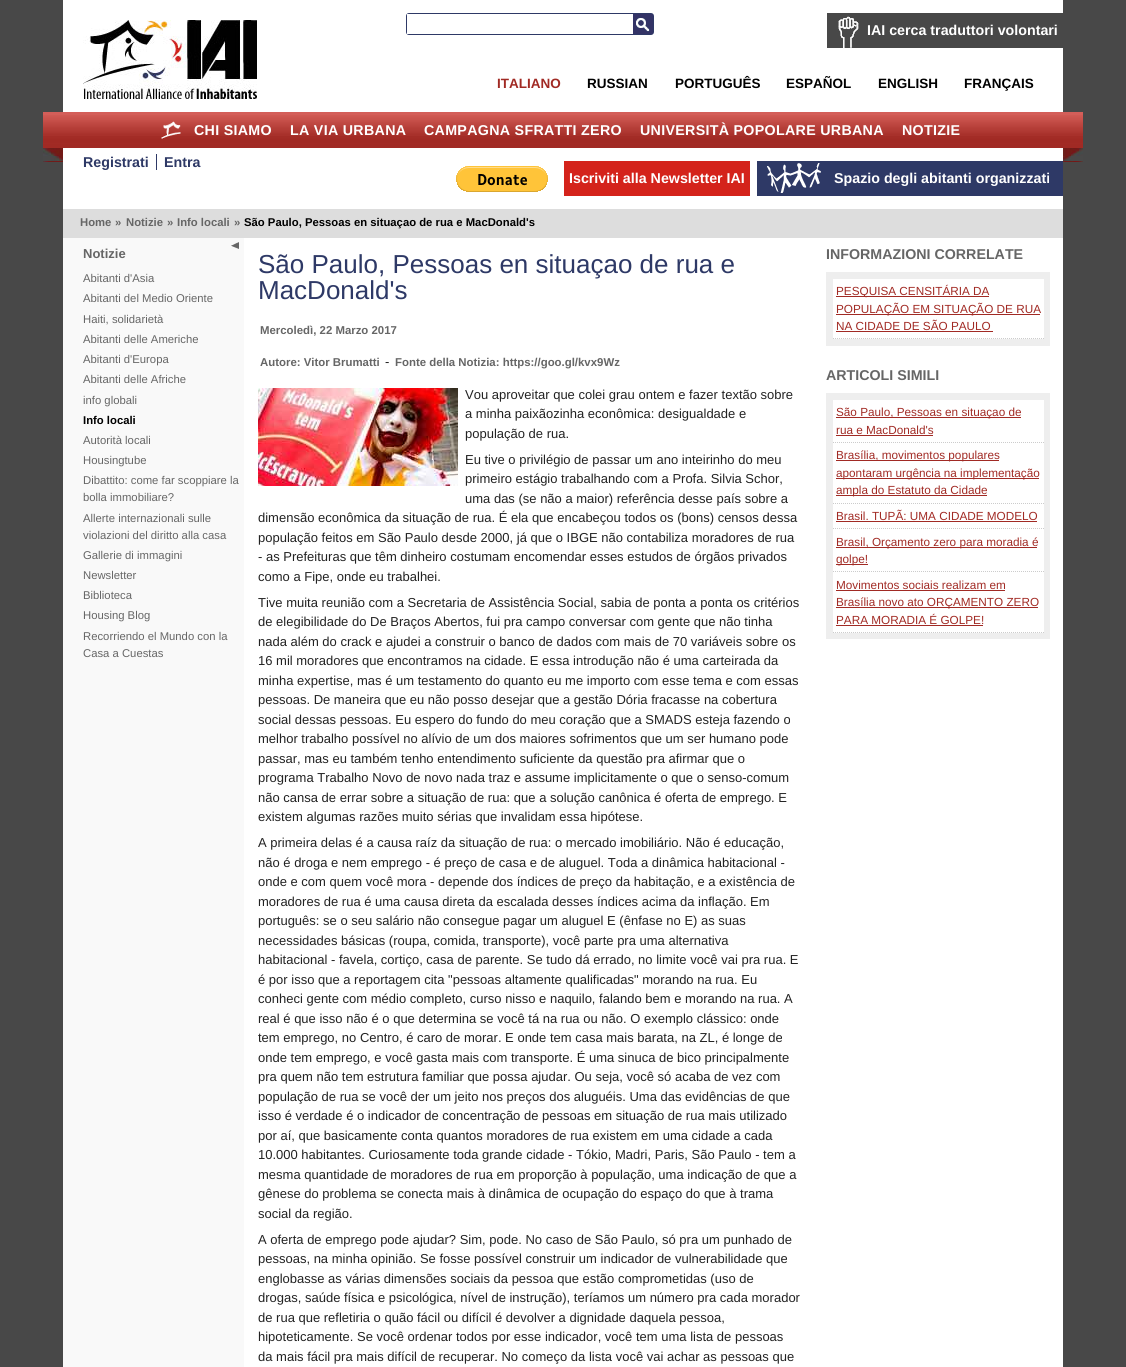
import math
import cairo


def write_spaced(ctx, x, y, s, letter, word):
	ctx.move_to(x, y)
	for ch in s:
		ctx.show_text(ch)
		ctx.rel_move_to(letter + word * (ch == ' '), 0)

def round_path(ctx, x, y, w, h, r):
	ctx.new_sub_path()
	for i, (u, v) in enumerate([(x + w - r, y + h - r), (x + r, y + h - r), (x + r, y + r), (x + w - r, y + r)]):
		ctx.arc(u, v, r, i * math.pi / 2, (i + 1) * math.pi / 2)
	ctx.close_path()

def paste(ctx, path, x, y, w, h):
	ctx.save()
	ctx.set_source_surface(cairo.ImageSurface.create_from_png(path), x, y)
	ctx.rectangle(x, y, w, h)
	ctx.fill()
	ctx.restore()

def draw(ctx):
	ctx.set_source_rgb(0.282, 0.282, 0.282)
	ctx.paint()
	ctx.set_source_rgb(1, 1, 1)
	ctx.rectangle(63, 0, 1000, 112)
	ctx.fill()
	paste(ctx, 'media/1.png', 83, 20, 174, 79)
	round_path(ctx, 406.5, 13.5, 247, 21, 2.5)
	ctx.set_source_rgb(0.18, 0.224, 0.4)
	ctx.set_line_width(1)
	ctx.stroke()
	ctx.set_source_rgb(1, 1, 1)
	ctx.rectangle(407, 14, 2, 20)
	ctx.fill()
	paste(ctx, 'media/2.png', 633, 14, 20, 20)
	ctx.set_source_rgb(0.282, 0.282, 0.282)
	ctx.rectangle(827, 13, 236, 35)
	ctx.fill()
	paste(ctx, 'media/3.png', 838, 16, 21, 32)
	ctx.select_font_face('Liberation Sans', cairo.FONT_SLANT_NORMAL, cairo.FONT_WEIGHT_BOLD)
	ctx.set_font_size(14.25)
	ctx.set_source_rgb(1, 1, 1)
	ctx.move_to(867, 35)
	ctx.show_text('IAI cerca traduttori volontari')
	ctx.set_font_size(13.5)
	ctx.set_source_rgb(0.631, 0.165, 0.141)
	ctx.move_to(497, 88)
	ctx.show_text('ITALIANO')
	ctx.set_source_rgb(0, 0, 0)
	for x, y, s in [
		(587, 88, 'RUSSIAN'),
		(675, 88, 'PORTUGUÊS'),
		(786, 88, 'ESPAÑOL'),
		(878, 88, 'ENGLISH'),
		(964, 88, 'FRANÇAIS'),
	]:
		ctx.move_to(x, y)
		ctx.show_text(s)
	ctx.set_source_rgb(0.831, 0.369, 0.349)
	ctx.rectangle(43, 112, 1040, 3)
	ctx.fill()
	paste(ctx, 'media/4.png', 43, 115, 1040, 33)
	paste(ctx, 'media/5.png', 161, 121, 20, 18)
	ctx.set_font_size(14.25)
	ctx.set_source_rgb(1, 1, 1)
	for x, y, s in [
		(194, 135, 'CHI SIAMO'),
		(290, 135, 'LA VIA URBANA'),
		(424, 135, 'CAMPAGNA SFRATTI ZERO'),
		(640, 135, 'UNIVERSITÀ POPOLARE URBANA'),
		(902, 135, 'NOTIZIE'),
	]:
		write_spaced(ctx, x, y, s, 0.3, 0)
	paste(ctx, 'media/6.png', 43, 148, 1040, 14)
	ctx.rectangle(63, 148, 1000, 61)
	ctx.fill()
	ctx.set_source_rgb(0.18, 0.224, 0.4)
	ctx.move_to(83, 167)
	ctx.show_text('Registrati')
	ctx.move_to(164, 167)
	ctx.show_text('Entra')
	ctx.rectangle(156, 154, 1, 16)
	ctx.fill()
	paste(ctx, 'media/7.png', 456, 166, 92, 26)
	ctx.set_source_rgb(0.831, 0.137, 0.106)
	ctx.rectangle(564, 161, 186, 35)
	ctx.fill()
	ctx.set_source_rgb(1, 1, 1)
	ctx.move_to(569, 183)
	ctx.show_text('Iscriviti alla Newsletter IAI')
	ctx.set_source_rgb(0.18, 0.224, 0.4)
	ctx.rectangle(757, 161, 306, 35)
	ctx.fill()
	paste(ctx, 'media/8.png', 767, 163, 54, 30)
	ctx.set_source_rgb(1, 1, 1)
	ctx.move_to(834, 183)
	ctx.show_text('Spazio degli abitanti organizzati')
	ctx.set_source_rgb(0.867, 0.867, 0.867)
	ctx.rectangle(63, 209, 1000, 29)
	ctx.fill()
	ctx.set_font_size(11.3)
	ctx.set_source_rgb(0.4, 0.4, 0.4)
	for x, y, s in [
		(80, 226, 'Home'),
		(115, 226, '»'),
		(126, 226, 'Notizie'),
		(167, 226, '»'),
		(177, 226, 'Info locali'),
		(234, 226, '»'),
	]:
		ctx.move_to(x, y)
		ctx.show_text(s)
	ctx.set_source_rgb(0, 0, 0)
	ctx.move_to(244, 226)
	ctx.show_text('São Paulo, Pessoas en situaçao de rua e MacDonald\'s')
	ctx.set_source_rgb(1, 1, 1)
	ctx.rectangle(244, 238, 819, 1129)
	ctx.fill()
	ctx.set_source_rgb(0.973, 0.973, 0.973)
	ctx.rectangle(63, 238, 181, 1129)
	ctx.fill()
	paste(ctx, 'media/9.png', 231, 242, 8, 7)
	ctx.set_font_size(13)
	ctx.set_source_rgb(0.4, 0.4, 0.4)
	ctx.move_to(83, 258)
	ctx.show_text('Notizie')
	ctx.select_font_face('Liberation Sans')
	ctx.set_font_size(11.3)
	for x, y, s in [
		(83, 282, 'Abitanti d\'Asia'),
		(83, 302, 'Abitanti del Medio Oriente'),
		(83, 323, 'Haiti, solidarietà'),
		(83, 343, 'Abitanti delle Americhe'),
		(83, 363, 'Abitanti d\'Europa'),
		(83, 383, 'Abitanti delle Afriche'),
		(83, 404, 'info globali'),
	]:
		ctx.move_to(x, y)
		ctx.show_text(s)
	ctx.select_font_face('Liberation Sans', cairo.FONT_SLANT_NORMAL, cairo.FONT_WEIGHT_BOLD)
	ctx.set_source_rgb(0, 0, 0)
	ctx.move_to(83, 424)
	ctx.show_text('Info locali')
	ctx.select_font_face('Liberation Sans')
	ctx.set_source_rgb(0.4, 0.4, 0.4)
	for x, y, s in [
		(83, 444, 'Autorità locali'),
		(83, 464, 'Housingtube'),
		(83, 484, 'Dibattito: come far scoppiare la'),
		(83, 501, 'bolla immobiliare?'),
		(83, 522, 'Allerte internazionali sulle'),
		(83, 539, 'violazioni del diritto alla casa'),
		(83, 559, 'Gallerie di immagini'),
		(83, 579, 'Newsletter'),
		(83, 599, 'Biblioteca'),
		(83, 619, 'Housing Blog'),
		(83, 640, 'Recorriendo el Mundo con la'),
		(83, 657, 'Casa a Cuestas'),
	]:
		ctx.move_to(x, y)
		ctx.show_text(s)
	ctx.set_font_size(26)
	ctx.set_source_rgb(0.18, 0.224, 0.4)
	ctx.move_to(258, 273)
	ctx.show_text('São Paulo, Pessoas en situaçao de rua e')
	ctx.move_to(258, 299)
	ctx.show_text('MacDonald\'s')
	ctx.select_font_face('Liberation Sans', cairo.FONT_SLANT_NORMAL, cairo.FONT_WEIGHT_BOLD)
	ctx.set_font_size(11.4)
	ctx.set_source_rgb(0.4, 0.4, 0.4)
	ctx.move_to(260, 334)
	ctx.show_text('Mercoledì, 22 Marzo 2017')
	ctx.move_to(260, 366)
	ctx.show_text('Autore: Vitor Brumatti')
	ctx.select_font_face('Liberation Sans')
	ctx.set_font_size(13)
	ctx.set_source_rgb(0.133, 0.133, 0.133)
	ctx.move_to(385, 366)
	ctx.show_text('-')
	ctx.select_font_face('Liberation Sans', cairo.FONT_SLANT_NORMAL, cairo.FONT_WEIGHT_BOLD)
	ctx.set_font_size(11.4)
	ctx.set_source_rgb(0.4, 0.4, 0.4)
	ctx.move_to(395, 366)
	ctx.show_text('Fonte della Notizia: https://goo.gl/kvx9Wz')
	paste(ctx, 'media/10.png', 258, 388, 200, 98)
	ctx.select_font_face('Liberation Sans')
	ctx.set_font_size(13)
	ctx.set_source_rgb(0.133, 0.133, 0.133)
	for x, y, s in [
		(465, 399, 'Vou aproveitar que colei grau ontem e fazer textão sobre'),
		(465, 418, 'a minha paixãozinha econômica: desigualdade e'),
		(465, 438, 'população de rua.'),
		(465, 464, 'Eu tive o privilégio de passar um ano inteirinho do meu'),
		(465, 483, 'primeiro estágio trabalhando com a Profa. Silvia Schor,'),
		(465, 503, 'uma das (se não a maior) referência desse país sobre a'),
		(258, 522, 'dimensão econômica da situação de rua. É ela que encabeçou todos os (bons) censos dessa'),
		(258, 542, 'população feitos em São Paulo desde 2000, já que o IBGE não contabiliza moradores de rua'),
		(258, 561, '- as Prefeituras que têm dinheiro costumam encomendar esses estudos de órgãos privados'),
		(258, 581, 'como a Fipe, onde eu trabalhei.'),
		(258, 607, 'Tive muita reunião com a Secretaria de Assistência Social, sabia de ponta a ponta os critérios'),
		(258, 626, 'de elegibilidade do De Braços Abertos, fui pra campo conversar com gente que não tinha'),
		(258, 646, 'nada além do crack e ajudei a construir o banco de dados com mais de 70 variáveis sobre os'),
		(258, 665, '16 mil moradores que encontramos na cidade. E essa introdução não é uma carteirada da'),
		(258, 685, 'minha expertise, mas é um testamento do quanto eu me importo com esse tema e com essas'),
		(258, 704, 'pessoas. De maneira que eu não posso desejar que a gestão Dória fracasse na cobertura'),
		(258, 724, 'social dessas pessoas. Eu espero do fundo do meu coração que a SMADS esteja fazendo o'),
		(258, 743, 'melhor trabalho possível no alívio de um dos maiores sofrimentos que um ser humano pode'),
		(258, 763, 'passar, mas eu também tenho entendimento suficiente da questão pra afirmar que o'),
		(258, 782, 'programa Trabalho Novo de novo nada traz e assume implicitamente o que o senso-comum'),
		(258, 802, 'não cansa de errar sobre a situação de rua: que a solução canônica é oferta de emprego. E'),
		(258, 821, 'existem algumas razões muito sérias que invalidam essa hipótese.'),
		(258, 847, 'A primeira delas é a causa raíz da situação de rua: o mercado imobiliário. Não é educação,'),
		(258, 867, 'não é droga e nem emprego - é preço de casa e de aluguel. Toda a dinâmica habitacional -'),
		(258, 886, 'onde e com quem você mora - depende dos índices de preço da habitação, e a existência de'),
		(258, 906, 'moradores de rua é uma causa direta da escalada desses índices acima da inflação. Em'),
		(258, 925, 'português: se o seu salário não consegue pagar um aluguel E (ênfase no E) as suas'),
		(258, 945, 'necessidades básicas (roupa, comida, transporte), você parte pra uma alternativa'),
		(258, 964, 'habitacional - favela, cortiço, casa de parente. Se tudo dá errado, no limite você vai pra rua. E'),
		(258, 984, 'é por isso que a reportagem cita "pessoas altamente qualificadas" morando na rua. Eu'),
		(258, 1003, 'conheci gente com médio completo, curso nisso e naquilo, falando bem e morando na rua. A'),
		(258, 1023, 'real é que isso não é o que determina se você tá na rua ou não. O exemplo clássico: onde'),
		(258, 1042, 'tem emprego, no Centro, é caro de morar. E onde tem casa mais barata, na ZL, é longe de'),
		(258, 1062, 'onde tem emprego, e você gasta mais com transporte. É uma sinuca de bico principalmente'),
		(258, 1081, 'pra quem não tem estrutura familiar que possa ajudar. Ou seja, você só acaba de vez com'),
		(258, 1101, 'população de rua se você der um jeito nos preços dos aluguéis. Uma das evidências de que'),
		(258, 1120, 'isso é verdade é o indicador de concentração de pessoas em situação de rua mais utilizado'),
		(258, 1140, 'por aí, que basicamente conta quantos moradores de rua existem em uma cidade a cada'),
		(258, 1159, '10.000 habitantes. Curiosamente toda grande cidade - Tókio, Madri, Paris, São Paulo - tem a'),
		(258, 1179, 'mesma quantidade de moradores de rua em proporção à população, uma indicação de que a'),
		(258, 1198, 'gênese do problema se conecta mais à dinâmica de ocupação do espaço do que à trama'),
		(258, 1218, 'social da região.'),
		(258, 1244, 'A oferta de emprego pode ajudar? Sim, pode. No caso de São Paulo, só pra um punhado de'),
		(258, 1263, 'pessoas, na minha opinião. Se fosse possível construir um indicador de vulnerabilidade que'),
		(258, 1283, 'englobasse as várias dimensões sociais da pessoa que estão comprometidas (uso de'),
		(258, 1302, 'drogas, saúde física e psicológica, nível de instrução), teríamos um número pra cada morador'),
		(258, 1322, 'de rua que refletiria o quão fácil ou difícil é devolver a dignidade daquela pessoa,'),
		(258, 1341, 'hipoteticamente. Se você ordenar todos por esse indicador, você tem uma lista de pessoas'),
		(258, 1361, 'da mais fácil pra mais difícil de recuperar. No começo da lista você vai achar as pessoas que'),
	]:
		ctx.move_to(x, y)
		ctx.show_text(s)
	ctx.select_font_face('Liberation Sans', cairo.FONT_SLANT_NORMAL, cairo.FONT_WEIGHT_BOLD)
	ctx.set_font_size(14.25)
	ctx.set_source_rgb(0.4, 0.4, 0.4)
	ctx.move_to(826, 259)
	ctx.show_text('INFORMAZIONI CORRELATE')
	ctx.set_source_rgb(0.933, 0.933, 0.933)
	ctx.rectangle(826, 272, 224, 74)
	ctx.fill()
	ctx.set_source_rgb(1, 1, 1)
	ctx.rectangle(833, 279, 211, 60)
	ctx.fill()
	ctx.new_path()
	ctx.move_to(833, 338.5)
	ctx.line_to(1044, 338.5)
	ctx.set_source_rgb(0.8, 0.8, 0.8)
	ctx.set_dash([1, 1])
	ctx.stroke()
	ctx.set_source_rgb(0.631, 0.165, 0.141)
	ctx.rectangle(836, 296, 153, 1)
	ctx.fill()
	ctx.select_font_face('Liberation Sans')
	ctx.set_font_size(11.75)
	ctx.move_to(836, 295)
	ctx.show_text('PESQUISA CENSITÁRIA DA')
	ctx.rectangle(836, 314, 204, 1)
	ctx.fill()
	ctx.move_to(836, 313)
	ctx.show_text('POPULAÇÃO EM SITUAÇÃO DE RUA')
	ctx.move_to(836, 330)
	ctx.show_text('NA CIDADE DE SÃO PAULO')
	ctx.rectangle(836, 331, 157, 1)
	ctx.fill()
	ctx.select_font_face('Liberation Sans', cairo.FONT_SLANT_NORMAL, cairo.FONT_WEIGHT_BOLD)
	ctx.set_font_size(14.25)
	ctx.set_source_rgb(0.4, 0.4, 0.4)
	ctx.move_to(826, 380)
	ctx.show_text('ARTICOLI SIMILI')
	ctx.set_source_rgb(0.933, 0.933, 0.933)
	ctx.rectangle(826, 393, 224, 246)
	ctx.fill()
	ctx.set_source_rgb(1, 1, 1)
	ctx.rectangle(833, 400, 211, 233)
	ctx.fill()
	ctx.new_path()
	ctx.move_to(833, 442.5)
	ctx.line_to(1044, 442.5)
	ctx.set_source_rgb(0.8, 0.8, 0.8)
	ctx.stroke()
	ctx.set_source_rgb(0.631, 0.165, 0.141)
	ctx.rectangle(836, 417, 185, 1)
	ctx.fill()
	ctx.select_font_face('Liberation Sans')
	ctx.set_font_size(11.75)
	ctx.move_to(836, 416)
	ctx.show_text('São Paulo, Pessoas en situaçao de')
	ctx.move_to(836, 434)
	ctx.show_text('rua e MacDonald\'s')
	ctx.rectangle(836, 435, 97, 1)
	ctx.fill()
	ctx.new_path()
	ctx.move_to(833, 503.5)
	ctx.line_to(1044, 503.5)
	ctx.set_source_rgb(0.8, 0.8, 0.8)
	ctx.stroke()
	ctx.set_source_rgb(0.631, 0.165, 0.141)
	ctx.rectangle(836, 460, 163, 1)
	ctx.fill()
	ctx.move_to(836, 459)
	ctx.show_text('Brasília, movimentos populares')
	ctx.rectangle(836, 478, 203, 1)
	ctx.fill()
	ctx.move_to(836, 477)
	ctx.show_text('apontaram urgência na implementação')
	ctx.rectangle(836, 495, 151, 1)
	ctx.fill()
	ctx.move_to(836, 494)
	ctx.show_text('ampla do Estatuto da Cidade')
	ctx.new_path()
	ctx.move_to(833, 528.5)
	ctx.line_to(1044, 528.5)
	ctx.set_source_rgb(0.8, 0.8, 0.8)
	ctx.stroke()
	ctx.set_source_rgb(0.631, 0.165, 0.141)
	ctx.move_to(836, 520)
	ctx.show_text('Brasil. TUPÃ: UMA CIDADE MODELO')
	ctx.rectangle(836, 521, 201, 1)
	ctx.fill()
	ctx.new_path()
	ctx.move_to(833, 571.5)
	ctx.line_to(1044, 571.5)
	ctx.set_source_rgb(0.8, 0.8, 0.8)
	ctx.stroke()
	ctx.set_source_rgb(0.631, 0.165, 0.141)
	ctx.rectangle(836, 547, 201, 1)
	ctx.fill()
	ctx.move_to(836, 546)
	ctx.show_text('Brasil, Orçamento zero para moradia é')
	ctx.rectangle(836, 564, 32, 1)
	ctx.fill()
	ctx.move_to(836, 563)
	ctx.show_text('golpe!')
	ctx.new_path()
	ctx.move_to(833, 632.5)
	ctx.line_to(1044, 632.5)
	ctx.set_source_rgb(0.8, 0.8, 0.8)
	ctx.stroke()
	ctx.set_source_rgb(0.631, 0.165, 0.141)
	ctx.move_to(836, 589)
	ctx.show_text('Movimentos sociais realizam em')
	ctx.rectangle(836, 590, 169, 1)
	ctx.fill()
	ctx.rectangle(836, 607, 202, 1)
	ctx.fill()
	ctx.move_to(836, 606)
	ctx.show_text('Brasília novo ato ORÇAMENTO ZERO')
	ctx.move_to(836, 624)
	ctx.show_text('PARA MORADIA É GOLPE!')
	ctx.rectangle(836, 625, 147, 1)
	ctx.fill()


surface = cairo.ImageSurface(cairo.FORMAT_RGB24, 1126, 1367)
ctx = cairo.Context(surface)
options = cairo.FontOptions()
options.set_hint_metrics(cairo.HINT_METRICS_OFF)
options.set_hint_style(cairo.HINT_STYLE_NONE)
ctx.set_font_options(options)
ctx.set_miter_limit(4)
draw(ctx)
surface.write_to_png('image.png')
